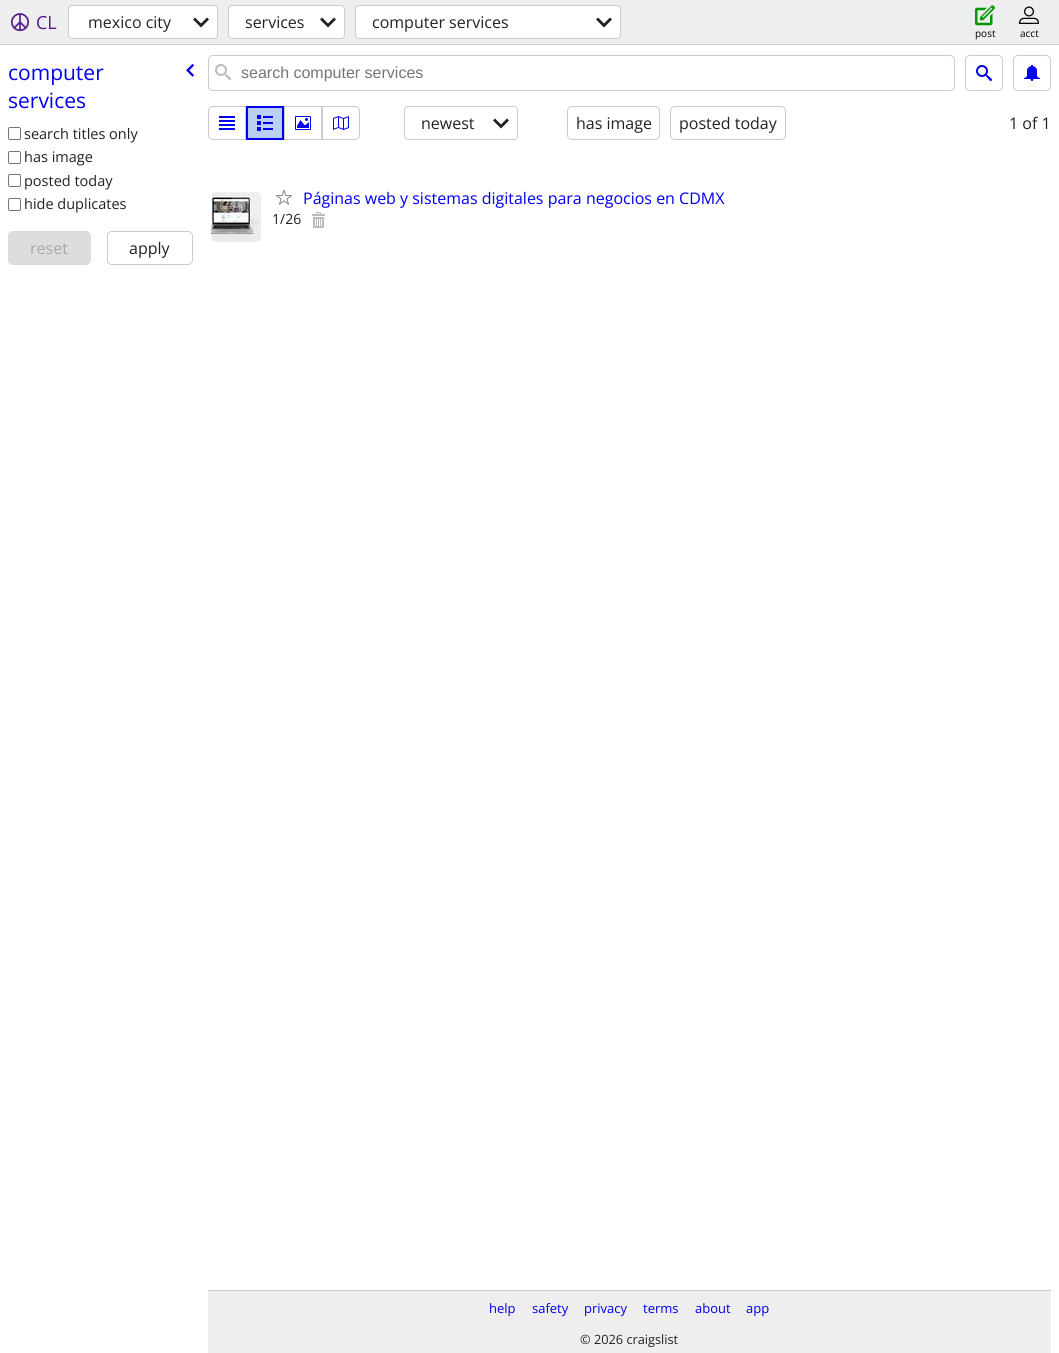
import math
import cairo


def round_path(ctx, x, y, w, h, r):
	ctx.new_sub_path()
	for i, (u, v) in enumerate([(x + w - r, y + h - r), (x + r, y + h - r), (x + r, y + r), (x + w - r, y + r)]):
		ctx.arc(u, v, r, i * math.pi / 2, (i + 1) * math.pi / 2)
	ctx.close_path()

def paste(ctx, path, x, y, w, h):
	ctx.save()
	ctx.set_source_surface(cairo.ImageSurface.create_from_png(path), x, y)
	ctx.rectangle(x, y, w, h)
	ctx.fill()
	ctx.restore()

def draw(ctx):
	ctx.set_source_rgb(1, 1, 1)
	ctx.paint()
	ctx.set_source_rgb(0.933, 0.933, 0.933)
	ctx.rectangle(0, 0, 1059, 44)
	ctx.fill()
	ctx.set_source_rgb(0.8, 0.8, 0.8)
	ctx.rectangle(0, 44, 1059, 1)
	ctx.fill()
	paste(ctx, 'media/1.png', 11, 13, 18, 19)
	ctx.select_font_face('Open Sans')
	ctx.set_font_size(18)
	ctx.set_source_rgb(0.333, 0.102, 0.545)
	ctx.move_to(36, 29)
	ctx.show_text('CL')
	ctx.set_source_rgb(1, 1, 1)
	round_path(ctx, 68.5, 5.5, 149, 33, 3.5)
	ctx.fill_preserve()
	ctx.set_source_rgb(0.8, 0.8, 0.8)
	ctx.set_line_width(1)
	ctx.stroke()
	ctx.set_font_size(16)
	ctx.set_source_rgb(0.133, 0.133, 0.133)
	ctx.move_to(88, 28)
	ctx.show_text('mexico city')
	paste(ctx, 'media/2.png', 193, 17, 16, 11)
	ctx.set_source_rgb(1, 1, 1)
	round_path(ctx, 228.5, 5.5, 116, 33, 3.5)
	ctx.fill_preserve()
	ctx.set_source_rgb(0.8, 0.8, 0.8)
	ctx.stroke()
	ctx.set_source_rgb(0.133, 0.133, 0.133)
	ctx.move_to(245, 28)
	ctx.show_text('services')
	paste(ctx, 'media/2.png', 320, 17, 16, 11)
	ctx.set_source_rgb(1, 1, 1)
	round_path(ctx, 355.5, 5.5, 265, 33, 3.5)
	ctx.fill_preserve()
	ctx.set_source_rgb(0.8, 0.8, 0.8)
	ctx.stroke()
	ctx.set_source_rgb(0.133, 0.133, 0.133)
	ctx.move_to(372, 28)
	ctx.show_text('computer services')
	paste(ctx, 'media/2.png', 596, 17, 16, 11)
	paste(ctx, 'media/3.png', 975, 5, 20, 21)
	ctx.set_font_size(10)
	ctx.set_source_rgb(0, 0, 0)
	ctx.move_to(975, 37)
	ctx.show_text('post')
	paste(ctx, 'media/4.png', 1019, 6, 20, 18)
	ctx.move_to(1020, 37)
	ctx.show_text('acct')
	ctx.set_font_size(21)
	ctx.set_source_rgb(0, 0, 0.933)
	ctx.move_to(8, 80)
	ctx.show_text('computer')
	ctx.move_to(8, 108)
	ctx.show_text('services')
	paste(ctx, 'media/5.png', 186, 63, 9, 14)
	round_path(ctx, 8.5, 127.5, 12, 12, 1.5)
	ctx.set_source_rgb(0.463, 0.463, 0.463)
	ctx.stroke()
	ctx.set_font_size(14.5)
	ctx.set_source_rgb(0.133, 0.133, 0.133)
	ctx.move_to(24, 139)
	ctx.show_text('search titles only')
	round_path(ctx, 8.5, 151.5, 12, 12, 1.5)
	ctx.set_source_rgb(0.463, 0.463, 0.463)
	ctx.stroke()
	ctx.set_source_rgb(0.133, 0.133, 0.133)
	ctx.move_to(24, 162)
	ctx.show_text('has image')
	round_path(ctx, 8.5, 174.5, 12, 12, 1.5)
	ctx.set_source_rgb(0.463, 0.463, 0.463)
	ctx.stroke()
	ctx.set_source_rgb(0.133, 0.133, 0.133)
	ctx.move_to(24, 186)
	ctx.show_text('posted today')
	round_path(ctx, 8.5, 198.5, 12, 12, 1.5)
	ctx.set_source_rgb(0.463, 0.463, 0.463)
	ctx.stroke()
	ctx.set_source_rgb(0.133, 0.133, 0.133)
	ctx.move_to(24, 209)
	ctx.show_text('hide duplicates')
	ctx.set_source_rgb(0.867, 0.867, 0.867)
	round_path(ctx, 8.5, 231.5, 82, 33, 4.5)
	ctx.fill_preserve()
	ctx.stroke()
	ctx.set_font_size(16)
	ctx.set_source_rgb(0.663, 0.663, 0.663)
	ctx.move_to(30, 254)
	ctx.show_text('reset')
	round_path(ctx, 107.5, 231.5, 85, 33, 4.5)
	ctx.set_source_rgb(0.8, 0.8, 0.8)
	ctx.stroke()
	ctx.set_source_rgb(0.133, 0.133, 0.133)
	ctx.move_to(129, 254)
	ctx.show_text('apply')
	round_path(ctx, 208.5, 55.5, 746, 35, 4.5)
	ctx.set_source_rgb(0.8, 0.8, 0.8)
	ctx.stroke()
	paste(ctx, 'media/6.png', 215, 64, 16, 16)
	ctx.select_font_face('Liberation Sans')
	ctx.set_source_rgb(0.459, 0.459, 0.459)
	ctx.move_to(241, 78)
	ctx.show_text('search computer services')
	round_path(ctx, 965.5, 55.5, 37, 35, 4.5)
	ctx.set_source_rgb(0.8, 0.8, 0.8)
	ctx.stroke()
	paste(ctx, 'media/7.png', 976, 65, 16, 16)
	round_path(ctx, 1013.5, 55.5, 37, 35, 4.5)
	ctx.stroke()
	paste(ctx, 'media/8.png', 1024, 65, 16, 16)
	ctx.new_path()
	ctx.move_to(213, 106.5)
	ctx.line_to(245.5, 106.5)
	ctx.line_to(245.5, 139.5)
	ctx.line_to(213, 139.5)
	ctx.curve_to(210.5, 139.5, 208.5, 137.5, 208.5, 135)
	ctx.line_to(208.5, 111)
	ctx.curve_to(208.5, 108.5, 210.5, 106.5, 213, 106.5)
	ctx.close_path()
	ctx.stroke()
	paste(ctx, 'media/9.png', 219, 116, 16, 14)
	ctx.set_source_rgb(0.729, 0.812, 0.949)
	ctx.rectangle(247, 107, 36, 32)
	ctx.fill_preserve()
	ctx.set_source_rgb(0, 0, 0.933)
	ctx.set_line_width(2)
	ctx.stroke()
	paste(ctx, 'media/10.png', 257, 115, 16, 16)
	ctx.rectangle(284.5, 106.5, 37, 33)
	ctx.set_source_rgb(0.8, 0.8, 0.8)
	ctx.set_line_width(1)
	ctx.stroke()
	paste(ctx, 'media/11.png', 295, 116, 16, 14)
	ctx.new_path()
	ctx.move_to(322.5, 106.5)
	ctx.line_to(355, 106.5)
	ctx.curve_to(357.5, 106.5, 359.5, 108.5, 359.5, 111)
	ctx.line_to(359.5, 135)
	ctx.curve_to(359.5, 137.5, 357.5, 139.5, 355, 139.5)
	ctx.line_to(322.5, 139.5)
	ctx.close_path()
	ctx.stroke()
	paste(ctx, 'media/12.png', 333, 116, 16, 14)
	round_path(ctx, 404.5, 106.5, 113, 33, 3.5)
	ctx.stroke()
	ctx.select_font_face('Open Sans')
	ctx.set_source_rgb(0.133, 0.133, 0.133)
	ctx.move_to(421, 129)
	ctx.show_text('newest')
	paste(ctx, 'media/2.png', 493, 118, 16, 11)
	round_path(ctx, 567.5, 106.5, 92, 33, 4.5)
	ctx.set_source_rgb(0.8, 0.8, 0.8)
	ctx.stroke()
	ctx.set_source_rgb(0.133, 0.133, 0.133)
	ctx.move_to(576, 129)
	ctx.show_text('has image')
	round_path(ctx, 670.5, 106.5, 115, 33, 4.5)
	ctx.set_source_rgb(0.8, 0.8, 0.8)
	ctx.stroke()
	ctx.set_source_rgb(0.133, 0.133, 0.133)
	ctx.move_to(679, 129)
	ctx.show_text('posted today')
	ctx.move_to(1009, 129)
	ctx.show_text('1 of 1')
	paste(ctx, 'media/13.png', 211, 192, 50, 50)
	paste(ctx, 'media/14.png', 276, 189, 16, 16)
	ctx.set_source_rgb(0, 0, 0.933)
	ctx.move_to(303, 204)
	ctx.show_text('Páginas web y sistemas digitales para negocios en CDMX')
	ctx.set_font_size(14)
	ctx.set_source_rgb(0.133, 0.133, 0.133)
	ctx.move_to(272, 224)
	ctx.show_text('1/26')
	paste(ctx, 'media/15.png', 312, 212, 13, 16)
	ctx.set_source_rgb(0.933, 0.933, 0.933)
	ctx.rectangle(208, 1291, 843, 62)
	ctx.fill()
	ctx.set_source_rgb(0.8, 0.8, 0.8)
	ctx.rectangle(208, 1290, 843, 1)
	ctx.fill()
	ctx.set_font_size(13)
	ctx.set_source_rgb(0, 0, 0.933)
	for x, y, s in [
		(489, 1313, 'help'),
		(532, 1313, 'safety'),
		(584, 1313, 'privacy'),
		(643, 1313, 'terms'),
		(695, 1313, 'about'),
		(746, 1313, 'app'),
	]:
		ctx.move_to(x, y)
		ctx.show_text(s)
	ctx.set_font_size(12.75)
	ctx.set_source_rgb(0.133, 0.133, 0.133)
	ctx.move_to(580, 1344)
	ctx.show_text('© 2026 craigslist')


surface = cairo.ImageSurface(cairo.FORMAT_RGB24, 1059, 1353)
ctx = cairo.Context(surface)
options = cairo.FontOptions()
options.set_hint_metrics(cairo.HINT_METRICS_OFF)
options.set_hint_style(cairo.HINT_STYLE_NONE)
ctx.set_font_options(options)
ctx.set_miter_limit(4)
draw(ctx)
surface.write_to_png('image.png')
